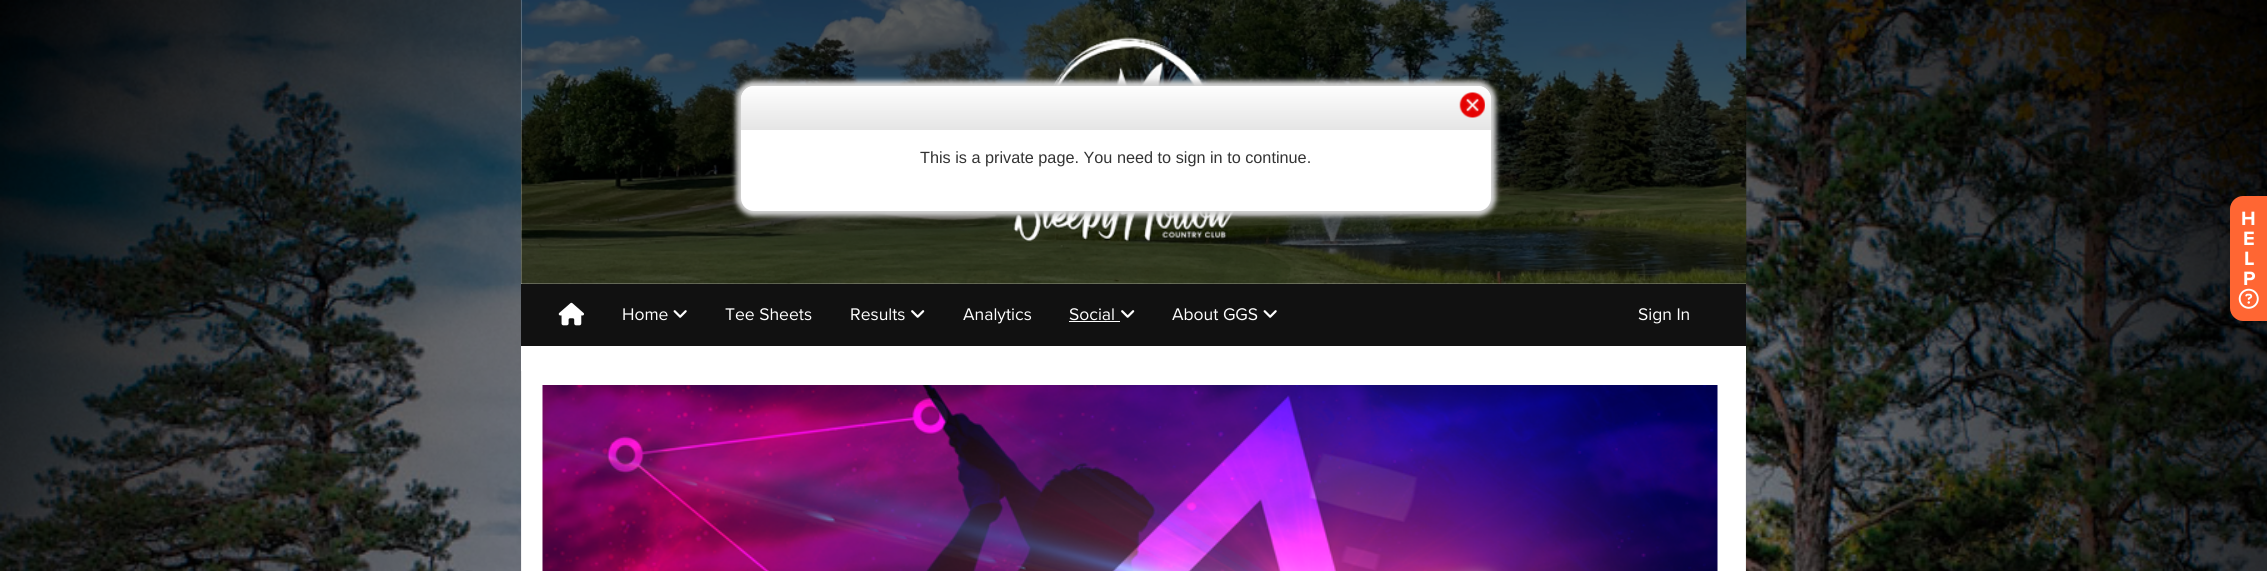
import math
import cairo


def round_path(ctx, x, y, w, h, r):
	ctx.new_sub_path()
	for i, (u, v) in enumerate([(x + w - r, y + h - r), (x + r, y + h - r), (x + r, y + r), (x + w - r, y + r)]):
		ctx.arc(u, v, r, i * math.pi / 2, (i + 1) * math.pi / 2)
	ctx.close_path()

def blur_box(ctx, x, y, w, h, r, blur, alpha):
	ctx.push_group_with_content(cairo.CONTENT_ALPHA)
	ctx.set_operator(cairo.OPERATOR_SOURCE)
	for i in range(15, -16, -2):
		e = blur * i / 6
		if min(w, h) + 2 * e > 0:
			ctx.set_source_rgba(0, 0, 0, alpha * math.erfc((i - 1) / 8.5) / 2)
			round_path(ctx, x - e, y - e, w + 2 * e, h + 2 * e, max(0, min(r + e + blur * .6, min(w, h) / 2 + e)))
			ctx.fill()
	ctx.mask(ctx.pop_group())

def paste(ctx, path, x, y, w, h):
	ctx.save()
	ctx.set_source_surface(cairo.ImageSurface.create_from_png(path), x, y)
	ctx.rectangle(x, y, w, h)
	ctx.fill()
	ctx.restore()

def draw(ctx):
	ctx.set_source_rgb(1, 1, 1)
	ctx.paint()
	paste(ctx, 'media/1.png', 0, 0, 2267, 571)
	ctx.set_source_rgb(1, 1, 1)
	ctx.rectangle(521, 0, 1225, 571)
	ctx.fill()
	paste(ctx, 'media/4.png', 521, 0, 1226, 284)
	ctx.set_source_rgb(0.827, 0.827, 0.827)
	blur_box(ctx, 736, 81, 760, 135, 18, 2.5, 1)
	ctx.set_source_rgb(1, 1, 1)
	round_path(ctx, 741, 86, 750, 125, 13)
	ctx.fill()
	gradient = cairo.LinearGradient(1116, 86, 1116, 130)
	gradient.add_color_stop_rgba(0, 0.996, 0.996, 0.996, 1)
	gradient.add_color_stop_rgba(1, 0.898, 0.898, 0.898, 1)
	ctx.set_source(gradient)
	ctx.new_path()
	ctx.move_to(754, 86)
	ctx.line_to(1478, 86)
	ctx.curve_to(1485, 86, 1491, 92, 1491, 99)
	ctx.line_to(1491, 130)
	ctx.line_to(741, 130)
	ctx.line_to(741, 99)
	ctx.curve_to(741, 92, 747, 86, 754, 86)
	ctx.close_path()
	ctx.fill()
	paste(ctx, 'media/2.png', 1459, 92, 26, 26)
	ctx.select_font_face('Liberation Sans')
	ctx.set_font_size(16.25)
	ctx.set_source_rgb(0.2, 0.2, 0.2)
	ctx.move_to(920, 163)
	ctx.show_text('This is a private page. You need to sign in to continue.')
	ctx.set_source_rgb(1, 0.4, 0.2)
	ctx.new_path()
	ctx.move_to(2243, 196)
	ctx.line_to(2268, 196)
	ctx.line_to(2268, 321)
	ctx.line_to(2243, 321)
	ctx.curve_to(2236, 321, 2230, 315, 2230, 308)
	ctx.line_to(2230, 209)
	ctx.curve_to(2230, 202, 2236, 196, 2243, 196)
	ctx.close_path()
	ctx.fill()
	ctx.select_font_face('Proxima Nova', cairo.FONT_SLANT_NORMAL, cairo.FONT_WEIGHT_BOLD)
	ctx.set_font_size(20)
	ctx.set_source_rgb(1, 1, 1)
	for x, y, s in [
		(2241, 225, 'H'),
		(2243, 245, 'E'),
		(2244, 265, 'L'),
		(2243, 285, 'P'),
	]:
		ctx.move_to(x, y)
		ctx.show_text(s)
	paste(ctx, 'media/3.png', 2238, 288, 21, 21)
	ctx.set_source_rgb(0.067, 0.067, 0.067)
	ctx.rectangle(521, 284, 1225, 62)
	ctx.fill()
	paste(ctx, 'media/5.png', 558, 302, 26, 24)
	ctx.select_font_face('Proxima Nova')
	ctx.set_font_size(17.5)
	ctx.set_source_rgb(1, 1, 1)
	ctx.move_to(622, 320)
	ctx.show_text('Home')
	paste(ctx, 'media/6.png', 673, 310, 14, 8)
	ctx.move_to(725, 320)
	ctx.show_text('Tee Sheets')
	ctx.move_to(850, 320)
	ctx.show_text('Results')
	paste(ctx, 'media/7.png', 911, 310, 14, 8)
	ctx.move_to(963, 320)
	ctx.show_text('Analytics')
	ctx.move_to(1069, 320)
	ctx.show_text('Social')
	ctx.rectangle(1069, 321, 51, 1)
	ctx.fill()
	paste(ctx, 'media/7.png', 1121, 310, 14, 8)
	ctx.move_to(1172, 320)
	ctx.show_text('About GGS')
	paste(ctx, 'media/6.png', 1263, 310, 14, 8)
	ctx.move_to(1638, 320)
	ctx.show_text('Sign In')
	ctx.set_source_rgb(0.949, 0.949, 0.949)
	ctx.rectangle(1745, 371, 1, 200)
	ctx.fill()
	ctx.rectangle(521, 371, 1, 200)
	ctx.fill()
	paste(ctx, 'media/8.png', 542, 385, 1176, 186)


surface = cairo.ImageSurface(cairo.FORMAT_RGB24, 2267, 571)
ctx = cairo.Context(surface)
options = cairo.FontOptions()
options.set_hint_metrics(cairo.HINT_METRICS_OFF)
options.set_hint_style(cairo.HINT_STYLE_NONE)
ctx.set_font_options(options)
ctx.set_miter_limit(4)
draw(ctx)
surface.write_to_png('image.png')
